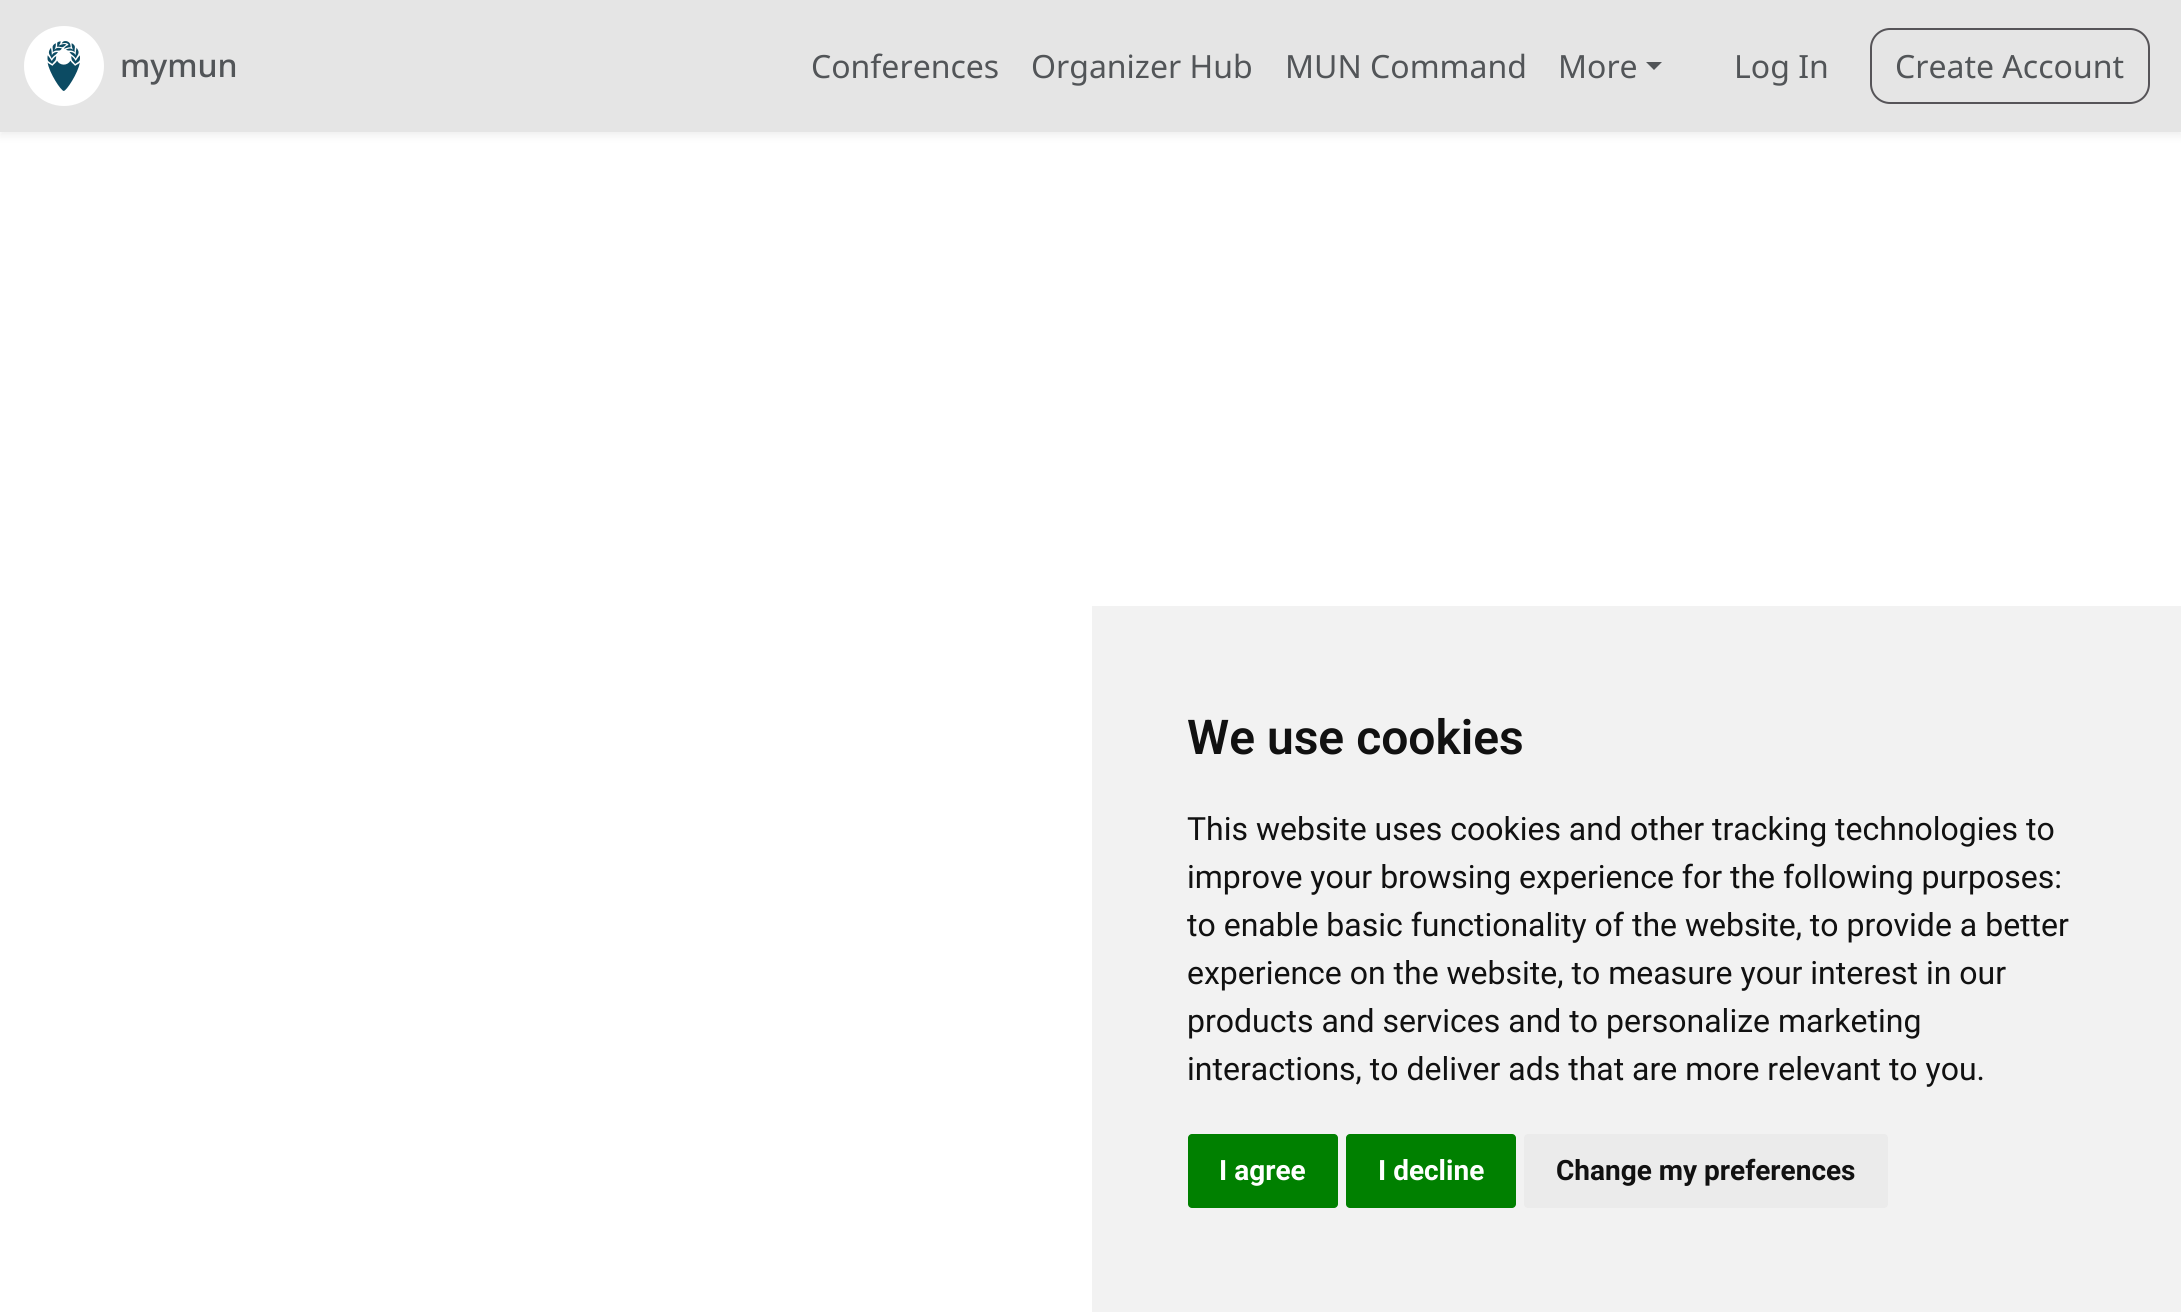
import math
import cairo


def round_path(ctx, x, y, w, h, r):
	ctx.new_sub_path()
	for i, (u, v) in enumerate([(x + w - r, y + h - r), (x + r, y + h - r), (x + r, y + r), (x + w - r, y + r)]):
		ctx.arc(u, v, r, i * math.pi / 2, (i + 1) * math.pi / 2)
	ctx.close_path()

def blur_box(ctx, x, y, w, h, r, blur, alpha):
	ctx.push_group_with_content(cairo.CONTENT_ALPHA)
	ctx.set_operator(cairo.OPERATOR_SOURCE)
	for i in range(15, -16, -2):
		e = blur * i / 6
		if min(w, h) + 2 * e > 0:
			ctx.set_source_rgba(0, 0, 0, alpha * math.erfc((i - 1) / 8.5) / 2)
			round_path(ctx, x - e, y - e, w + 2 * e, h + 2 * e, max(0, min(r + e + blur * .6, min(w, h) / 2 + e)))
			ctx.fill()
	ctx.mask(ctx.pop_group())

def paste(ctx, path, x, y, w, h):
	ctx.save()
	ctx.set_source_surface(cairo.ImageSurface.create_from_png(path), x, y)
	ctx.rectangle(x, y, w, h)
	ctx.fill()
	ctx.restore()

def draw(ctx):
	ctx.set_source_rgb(1, 1, 1)
	ctx.paint()
	ctx.set_source_rgb(0.898, 0.898, 0.898)
	blur_box(ctx, 0, 4, 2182, 132, 0, 4, 0.6)
	ctx.set_source_rgb(0.898, 0.898, 0.898)
	ctx.rectangle(0, 0, 2181, 132)
	ctx.fill()
	paste(ctx, 'media/1.png', 24, 26, 80, 80)
	ctx.select_font_face('Noto Sans Medium')
	ctx.set_font_size(32)
	ctx.set_source_rgb(0.322, 0.333, 0.345)
	ctx.move_to(120, 77)
	ctx.show_text('mymun')
	ctx.select_font_face('Noto Sans')
	for x, y, s in [
		(811, 78, 'Conferences'),
		(1031, 78, 'Organizer Hub'),
		(1285, 78, 'MUN Command'),
		(1558, 78, 'More'),
	]:
		ctx.move_to(x, y)
		ctx.show_text(s)
	ctx.new_path()
	ctx.move_to(1646, 62)
	ctx.line_to(1662, 62)
	ctx.line_to(1654, 70)
	ctx.close_path()
	ctx.fill()
	ctx.move_to(1734, 78)
	ctx.show_text('Log In')
	round_path(ctx, 1871, 29, 278, 74, 19)
	ctx.set_source_rgb(0.337, 0.329, 0.345)
	ctx.stroke()
	ctx.set_source_rgb(0.322, 0.333, 0.345)
	ctx.move_to(1895, 78)
	ctx.show_text('Create Account')
	ctx.set_source_rgb(0.949, 0.949, 0.949)
	ctx.rectangle(1092, 606, 1089, 706)
	ctx.fill()
	ctx.select_font_face('Roboto SemiBold')
	ctx.set_font_size(48)
	ctx.set_source_rgb(0.067, 0.067, 0.067)
	ctx.move_to(1187, 754)
	ctx.show_text('We use cookies')
	ctx.select_font_face('Roboto')
	ctx.set_font_size(32)
	for x, y, s in [
		(1187, 840, 'This website uses cookies and other tracking technologies to'),
		(1187, 888, 'improve your browsing experience for the following purposes:'),
		(1187, 936, 'to enable basic functionality of the website, to provide a better'),
		(1187, 984, 'experience on the website, to measure your interest in our'),
		(1187, 1032, 'products and services and to personalize marketing'),
		(1187, 1080, 'interactions, to deliver ads that are more relevant to you.'),
	]:
		ctx.move_to(x, y)
		ctx.show_text(s)
	ctx.set_source_rgb(0, 0.502, 0)
	round_path(ctx, 1188, 1134, 150, 74, 4)
	ctx.fill()
	ctx.select_font_face('Roboto', cairo.FONT_SLANT_NORMAL, cairo.FONT_WEIGHT_BOLD)
	ctx.set_font_size(28)
	ctx.set_source_rgb(1, 1, 1)
	ctx.move_to(1219, 1180)
	ctx.show_text('I agree')
	ctx.set_source_rgb(0, 0.502, 0)
	round_path(ctx, 1346, 1134, 170, 74, 4)
	ctx.fill()
	ctx.set_source_rgb(1, 1, 1)
	ctx.move_to(1378, 1180)
	ctx.show_text('I decline')
	ctx.set_source_rgb(0.918, 0.918, 0.918)
	round_path(ctx, 1524, 1134, 364, 74, 4)
	ctx.fill()
	ctx.set_source_rgb(0.067, 0.067, 0.067)
	ctx.move_to(1556, 1180)
	ctx.show_text('Change my preferences')


surface = cairo.ImageSurface(cairo.FORMAT_RGB24, 2181, 1312)
ctx = cairo.Context(surface)
options = cairo.FontOptions()
options.set_hint_metrics(cairo.HINT_METRICS_OFF)
options.set_hint_style(cairo.HINT_STYLE_NONE)
ctx.set_font_options(options)
ctx.set_miter_limit(4)
draw(ctx)
surface.write_to_png('image.png')
